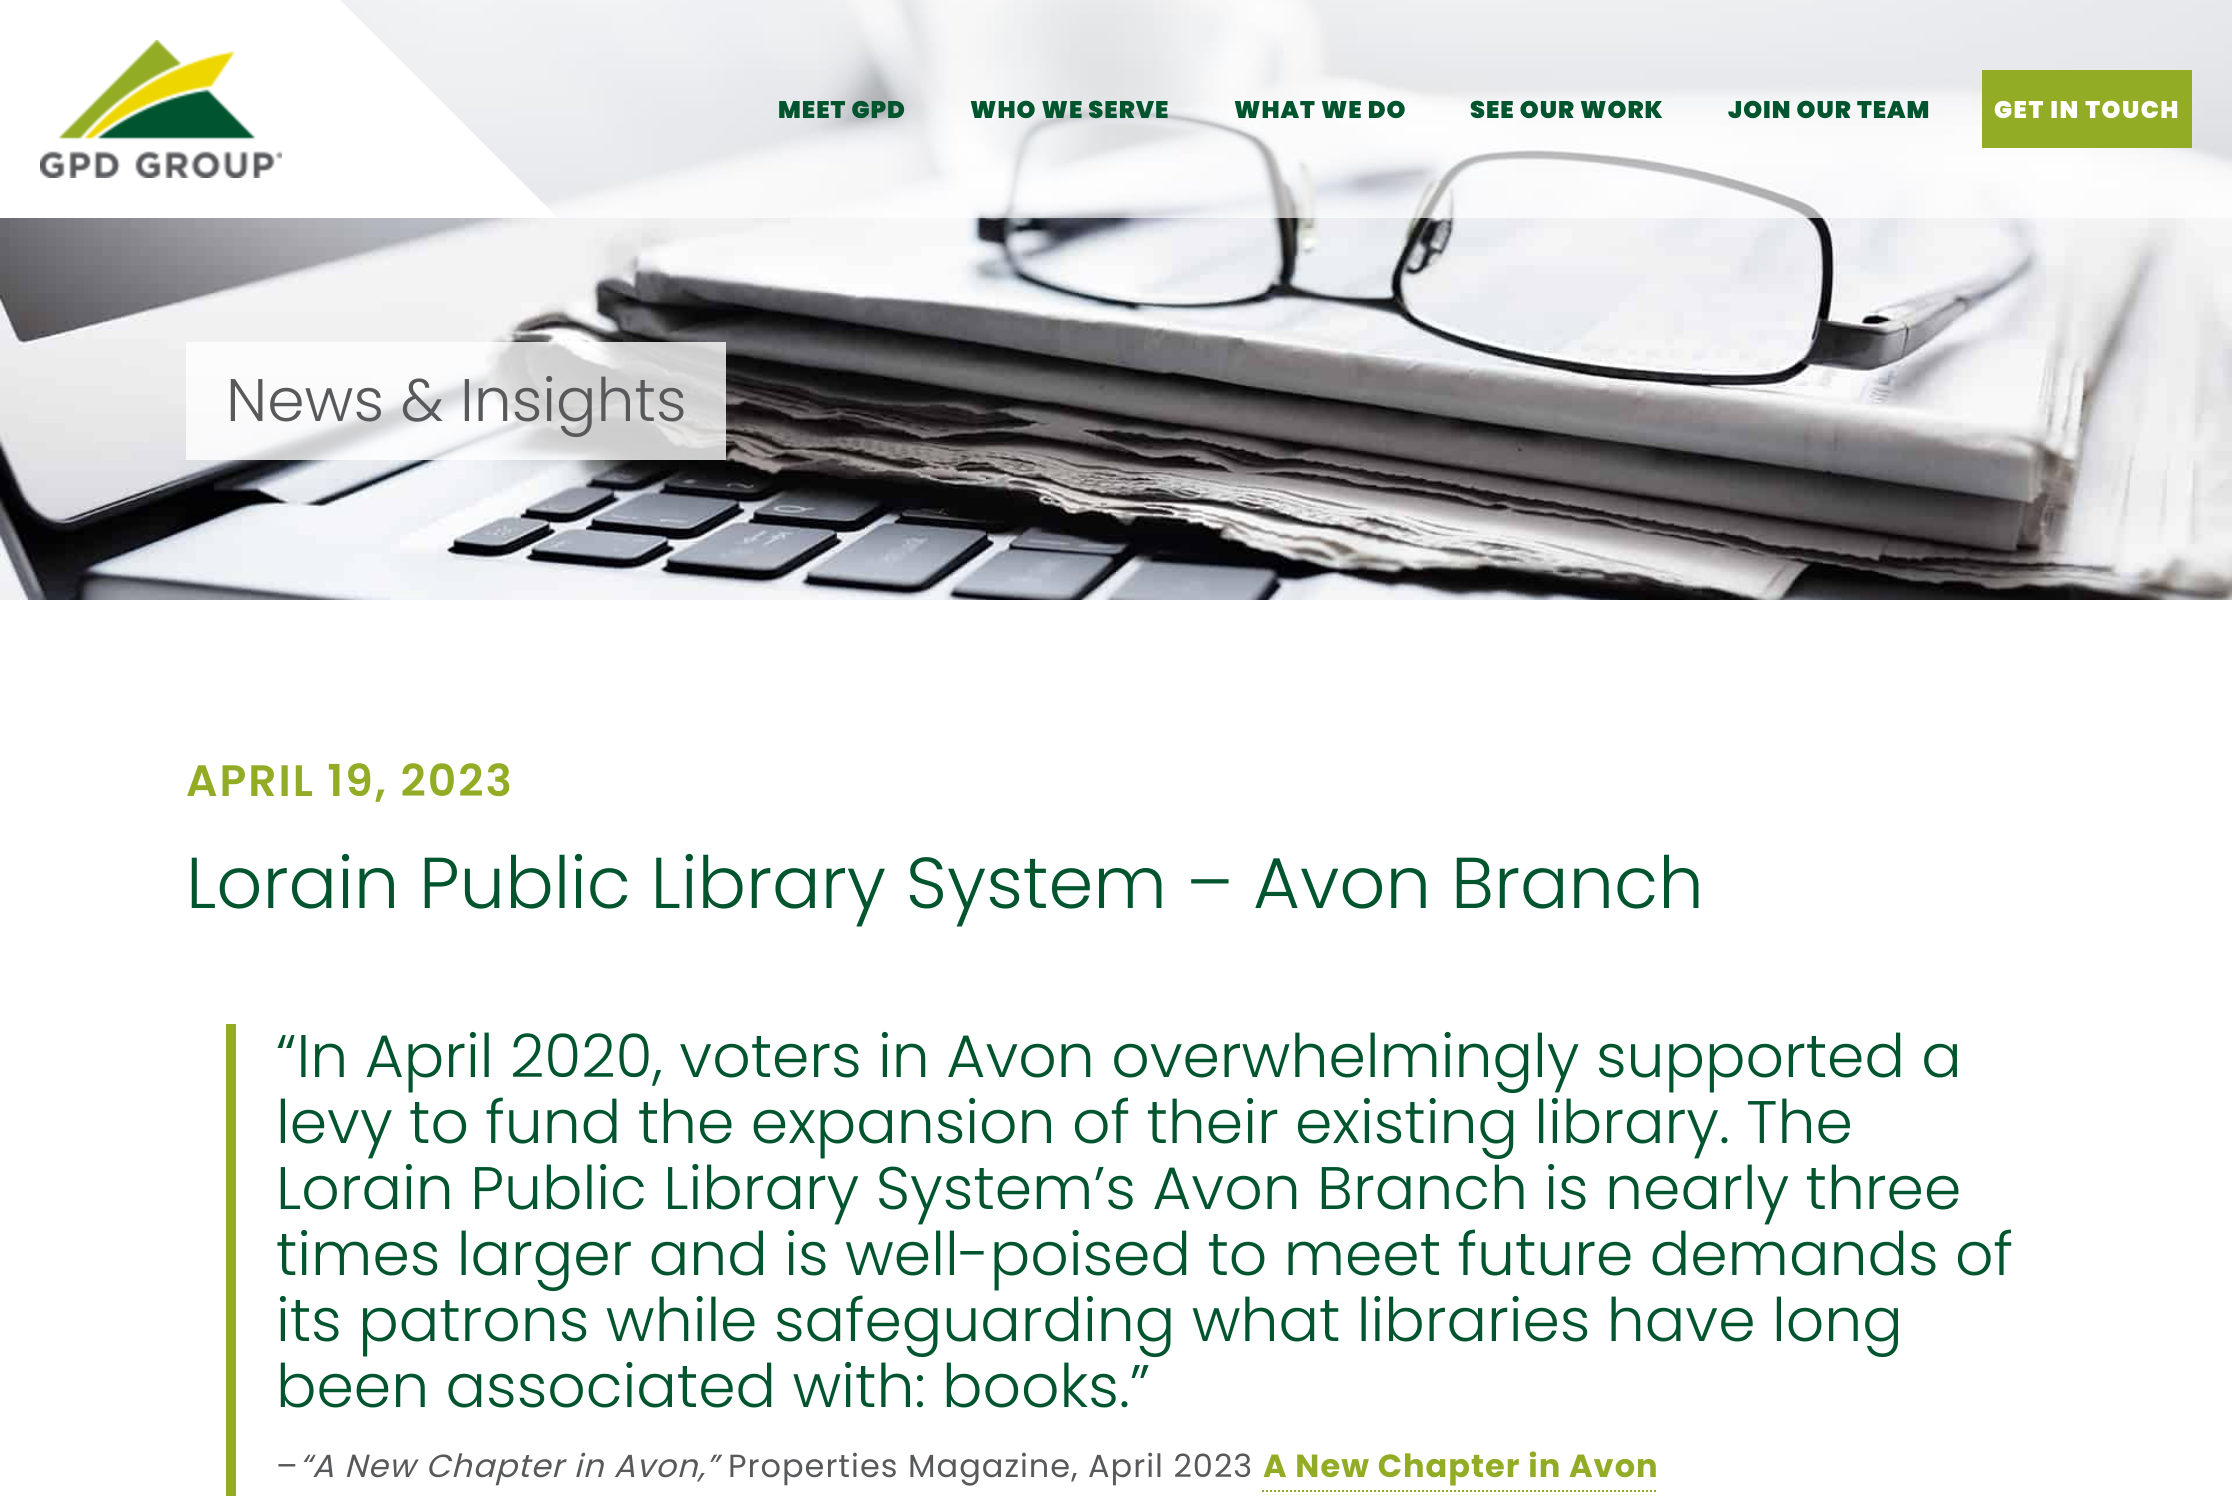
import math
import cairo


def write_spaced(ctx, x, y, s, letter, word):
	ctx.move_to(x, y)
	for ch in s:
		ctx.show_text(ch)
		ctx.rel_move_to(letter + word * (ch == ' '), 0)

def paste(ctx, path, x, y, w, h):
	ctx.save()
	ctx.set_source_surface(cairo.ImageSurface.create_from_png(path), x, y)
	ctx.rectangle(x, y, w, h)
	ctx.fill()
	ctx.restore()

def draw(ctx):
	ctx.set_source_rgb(1, 1, 1)
	ctx.paint()
	paste(ctx, 'media/2.png', 0, 0, 2232, 600)
	ctx.set_source_rgba(1, 1, 1, 0.65)
	ctx.rectangle(340, 0, 1892, 218)
	ctx.fill()
	ctx.set_source_rgb(1, 1, 1)
	ctx.rectangle(0, 0, 340, 218)
	ctx.fill()
	paste(ctx, 'media/1.png', 40, 40, 242, 138)
	ctx.new_path()
	ctx.move_to(340, 218)
	ctx.line_to(340, 0)
	ctx.line_to(558, 218)
	ctx.close_path()
	ctx.fill()
	ctx.select_font_face('Poppins Black')
	ctx.set_font_size(24)
	ctx.set_source_rgb(0, 0.333, 0.18)
	for x, y, s in [
		(778, 118, 'MEET GPD'),
		(970, 118, 'WHO WE SERVE'),
		(1234, 118, 'WHAT WE DO'),
		(1470, 118, 'SEE OUR WORK'),
		(1728, 118, 'JOIN OUR TEAM'),
	]:
		write_spaced(ctx, x, y, s, 1, 0)
	ctx.set_source_rgb(0.573, 0.675, 0.145)
	ctx.rectangle(1982, 70, 210, 78)
	ctx.fill()
	ctx.set_source_rgb(1, 1, 1)
	write_spaced(ctx, 1994, 118, 'GET IN TOUCH', 1.5, 0)
	ctx.set_source_rgba(1, 1, 1, 0.8)
	ctx.rectangle(186, 342, 540, 118)
	ctx.fill()
	ctx.select_font_face('Poppins Light')
	ctx.set_font_size(60)
	ctx.set_source_rgb(0.345, 0.349, 0.357)
	ctx.move_to(226, 421)
	ctx.show_text('News & Insights')
	ctx.select_font_face('Poppins SemiBold')
	ctx.set_font_size(44)
	ctx.set_source_rgb(0.573, 0.675, 0.145)
	write_spaced(ctx, 186, 796, 'APRIL 19, 2023', 2, 0)
	ctx.select_font_face('Poppins Light')
	ctx.set_font_size(72)
	ctx.set_source_rgb(0, 0.333, 0.18)
	ctx.move_to(186, 908)
	ctx.show_text('Lorain Public Library System – Avon Branch')
	ctx.set_source_rgb(0.573, 0.675, 0.145)
	ctx.rectangle(226, 1024, 10, 472)
	ctx.fill()
	ctx.set_font_size(60)
	ctx.set_source_rgb(0, 0.333, 0.18)
	for x, y, s in [
		(276, 1077, '“In April 2020, voters in Avon overwhelmingly supported a'),
		(276, 1143, 'levy to fund the expansion of their existing library. The'),
		(276, 1209, 'Lorain Public Library System’s Avon Branch is nearly three'),
		(276, 1275, 'times larger and is well-poised to meet future demands of'),
		(276, 1341, 'its patrons while safeguarding what libraries have long'),
		(276, 1407, 'been associated with: books.”'),
	]:
		ctx.move_to(x, y)
		ctx.show_text(s)
	ctx.select_font_face('Poppins')
	ctx.set_font_size(32)
	ctx.set_source_rgb(0.345, 0.349, 0.357)
	write_spaced(ctx, 276, 1477, '–', 1, 0)
	ctx.select_font_face('Poppins', cairo.FONT_SLANT_ITALIC)
	write_spaced(ctx, 299, 1477, '“A New Chapter in Avon,”', 1, 0)
	ctx.select_font_face('Poppins')
	write_spaced(ctx, 728, 1477, 'Properties Magazine, April 2023', 1, 0)
	ctx.select_font_face('Poppins', cairo.FONT_SLANT_NORMAL, cairo.FONT_WEIGHT_BOLD)
	ctx.set_source_rgb(0.573, 0.675, 0.145)
	write_spaced(ctx, 1263, 1477, 'A New Chapter in Avon', 1, 0)
	ctx.new_path()
	ctx.move_to(1262, 1491)
	ctx.line_to(1658, 1491)
	ctx.set_dash([2, 2])
	ctx.stroke()


surface = cairo.ImageSurface(cairo.FORMAT_RGB24, 2232, 1497)
ctx = cairo.Context(surface)
options = cairo.FontOptions()
options.set_hint_metrics(cairo.HINT_METRICS_OFF)
options.set_hint_style(cairo.HINT_STYLE_NONE)
ctx.set_font_options(options)
ctx.set_miter_limit(4)
draw(ctx)
surface.write_to_png('image.png')
